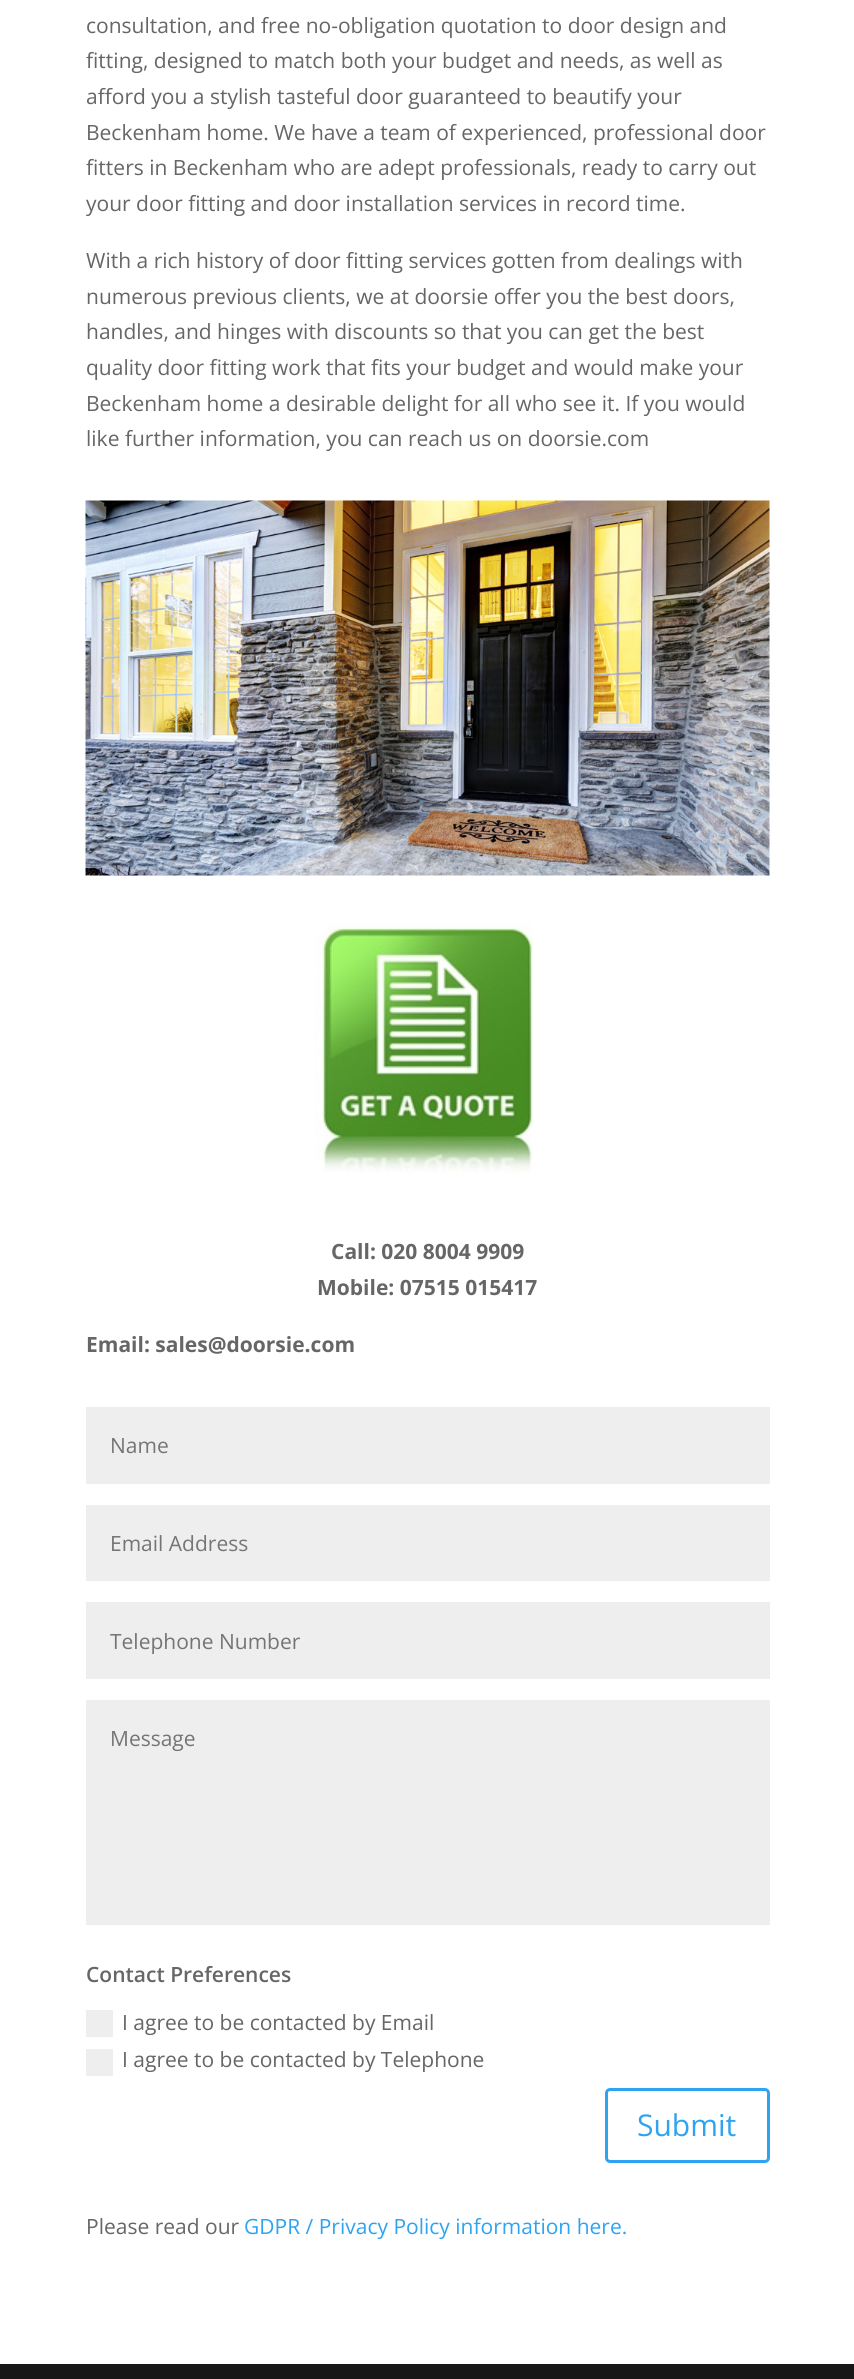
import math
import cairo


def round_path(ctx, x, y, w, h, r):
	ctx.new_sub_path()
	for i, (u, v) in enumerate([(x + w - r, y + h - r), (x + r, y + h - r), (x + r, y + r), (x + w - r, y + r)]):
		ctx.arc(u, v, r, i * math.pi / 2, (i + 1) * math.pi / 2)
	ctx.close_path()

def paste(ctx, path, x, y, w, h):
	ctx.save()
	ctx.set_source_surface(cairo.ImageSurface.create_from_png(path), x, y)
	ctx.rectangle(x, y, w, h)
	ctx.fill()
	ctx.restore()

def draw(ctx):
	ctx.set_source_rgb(1, 1, 1)
	ctx.paint()
	ctx.select_font_face('Open Sans')
	ctx.set_font_size(21)
	ctx.set_source_rgb(0.4, 0.4, 0.4)
	for x, y, s in [
		(86, 33, 'consultation, and free no-obligation quotation to door design and'),
		(86, 68, 'fitting, designed to match both your budget and needs, as well as'),
		(86, 104, 'afford you a stylish tasteful door guaranteed to beautify your'),
		(86, 140, 'Beckenham home. We have a team of experienced, professional door'),
		(86, 175, 'fitters in Beckenham who are adept professionals, ready to carry out'),
		(86, 211, 'your door fitting and door installation services in record time.'),
		(86, 268, 'With a rich history of door fitting services gotten from dealings with'),
		(86, 304, 'numerous previous clients, we at doorsie offer you the best doors,'),
		(86, 339, 'handles, and hinges with discounts so that you can get the best'),
		(86, 375, 'quality door fitting work that fits your budget and would make your'),
		(86, 411, 'Beckenham home a desirable delight for all who see it. If you would'),
		(86, 446, 'like further information, you can reach us on doorsie.com'),
	]:
		ctx.move_to(x, y)
		ctx.show_text(s)
	paste(ctx, 'media/1.png', 85, 500, 685, 376)
	paste(ctx, 'media/2.png', 315, 923, 218, 250)
	ctx.select_font_face('Open Sans', cairo.FONT_SLANT_NORMAL, cairo.FONT_WEIGHT_BOLD)
	for x, y, s in [
		(331, 1259, 'Call: 020 8004 9909'),
		(317, 1295, 'Mobile: 07515 015417'),
		(86, 1352, 'Email: sales@doorsie.com'),
	]:
		ctx.move_to(x, y)
		ctx.show_text(s)
	ctx.set_source_rgb(0.933, 0.933, 0.933)
	ctx.rectangle(86, 1407, 684, 77)
	ctx.fill()
	ctx.select_font_face('Open Sans')
	ctx.set_source_rgb(0.459, 0.459, 0.459)
	ctx.move_to(110, 1453)
	ctx.show_text('Name')
	ctx.set_source_rgb(0.933, 0.933, 0.933)
	ctx.rectangle(86, 1505, 684, 76)
	ctx.fill()
	ctx.set_source_rgb(0.459, 0.459, 0.459)
	ctx.move_to(110, 1551)
	ctx.show_text('Email Address')
	ctx.set_source_rgb(0.933, 0.933, 0.933)
	ctx.rectangle(86, 1602, 684, 77)
	ctx.fill()
	ctx.set_source_rgb(0.459, 0.459, 0.459)
	ctx.move_to(110, 1649)
	ctx.show_text('Telephone Number')
	ctx.set_source_rgb(0.933, 0.933, 0.933)
	ctx.rectangle(86, 1700, 684, 225)
	ctx.fill()
	ctx.set_source_rgb(0.459, 0.459, 0.459)
	ctx.move_to(110, 1746)
	ctx.show_text('Message')
	ctx.select_font_face('Open Sans SemiBold')
	ctx.set_source_rgb(0.4, 0.4, 0.4)
	ctx.move_to(86, 1982)
	ctx.show_text('Contact Preferences')
	ctx.set_source_rgb(0.933, 0.933, 0.933)
	ctx.rectangle(86, 2010, 27, 27)
	ctx.fill()
	ctx.select_font_face('Open Sans')
	ctx.set_source_rgb(0.4, 0.4, 0.4)
	ctx.move_to(122, 2030)
	ctx.show_text('I agree to be contacted by Email')
	ctx.set_source_rgb(0.933, 0.933, 0.933)
	ctx.rectangle(86, 2049, 27, 27)
	ctx.fill()
	ctx.set_source_rgb(0.4, 0.4, 0.4)
	ctx.move_to(122, 2067)
	ctx.show_text('I agree to be contacted by Telephone')
	round_path(ctx, 606.5, 2089.5, 162, 72, 3.5)
	ctx.set_source_rgb(0.18, 0.639, 0.949)
	ctx.set_line_width(3)
	ctx.stroke()
	ctx.set_font_size(30)
	ctx.move_to(637, 2136)
	ctx.show_text('Submit')
	ctx.set_font_size(21)
	ctx.set_source_rgb(0.4, 0.4, 0.4)
	ctx.move_to(86, 2234)
	ctx.show_text('Please read our')
	ctx.set_source_rgb(0.18, 0.639, 0.949)
	ctx.move_to(244, 2234)
	ctx.show_text('GDPR / Privacy Policy information here.')
	ctx.set_source_rgb(0.09, 0.09, 0.09)
	ctx.rectangle(0, 2364, 854, 15)
	ctx.fill()


surface = cairo.ImageSurface(cairo.FORMAT_RGB24, 854, 2379)
ctx = cairo.Context(surface)
options = cairo.FontOptions()
options.set_hint_metrics(cairo.HINT_METRICS_OFF)
options.set_hint_style(cairo.HINT_STYLE_NONE)
ctx.set_font_options(options)
ctx.set_miter_limit(4)
draw(ctx)
surface.write_to_png('image.png')
